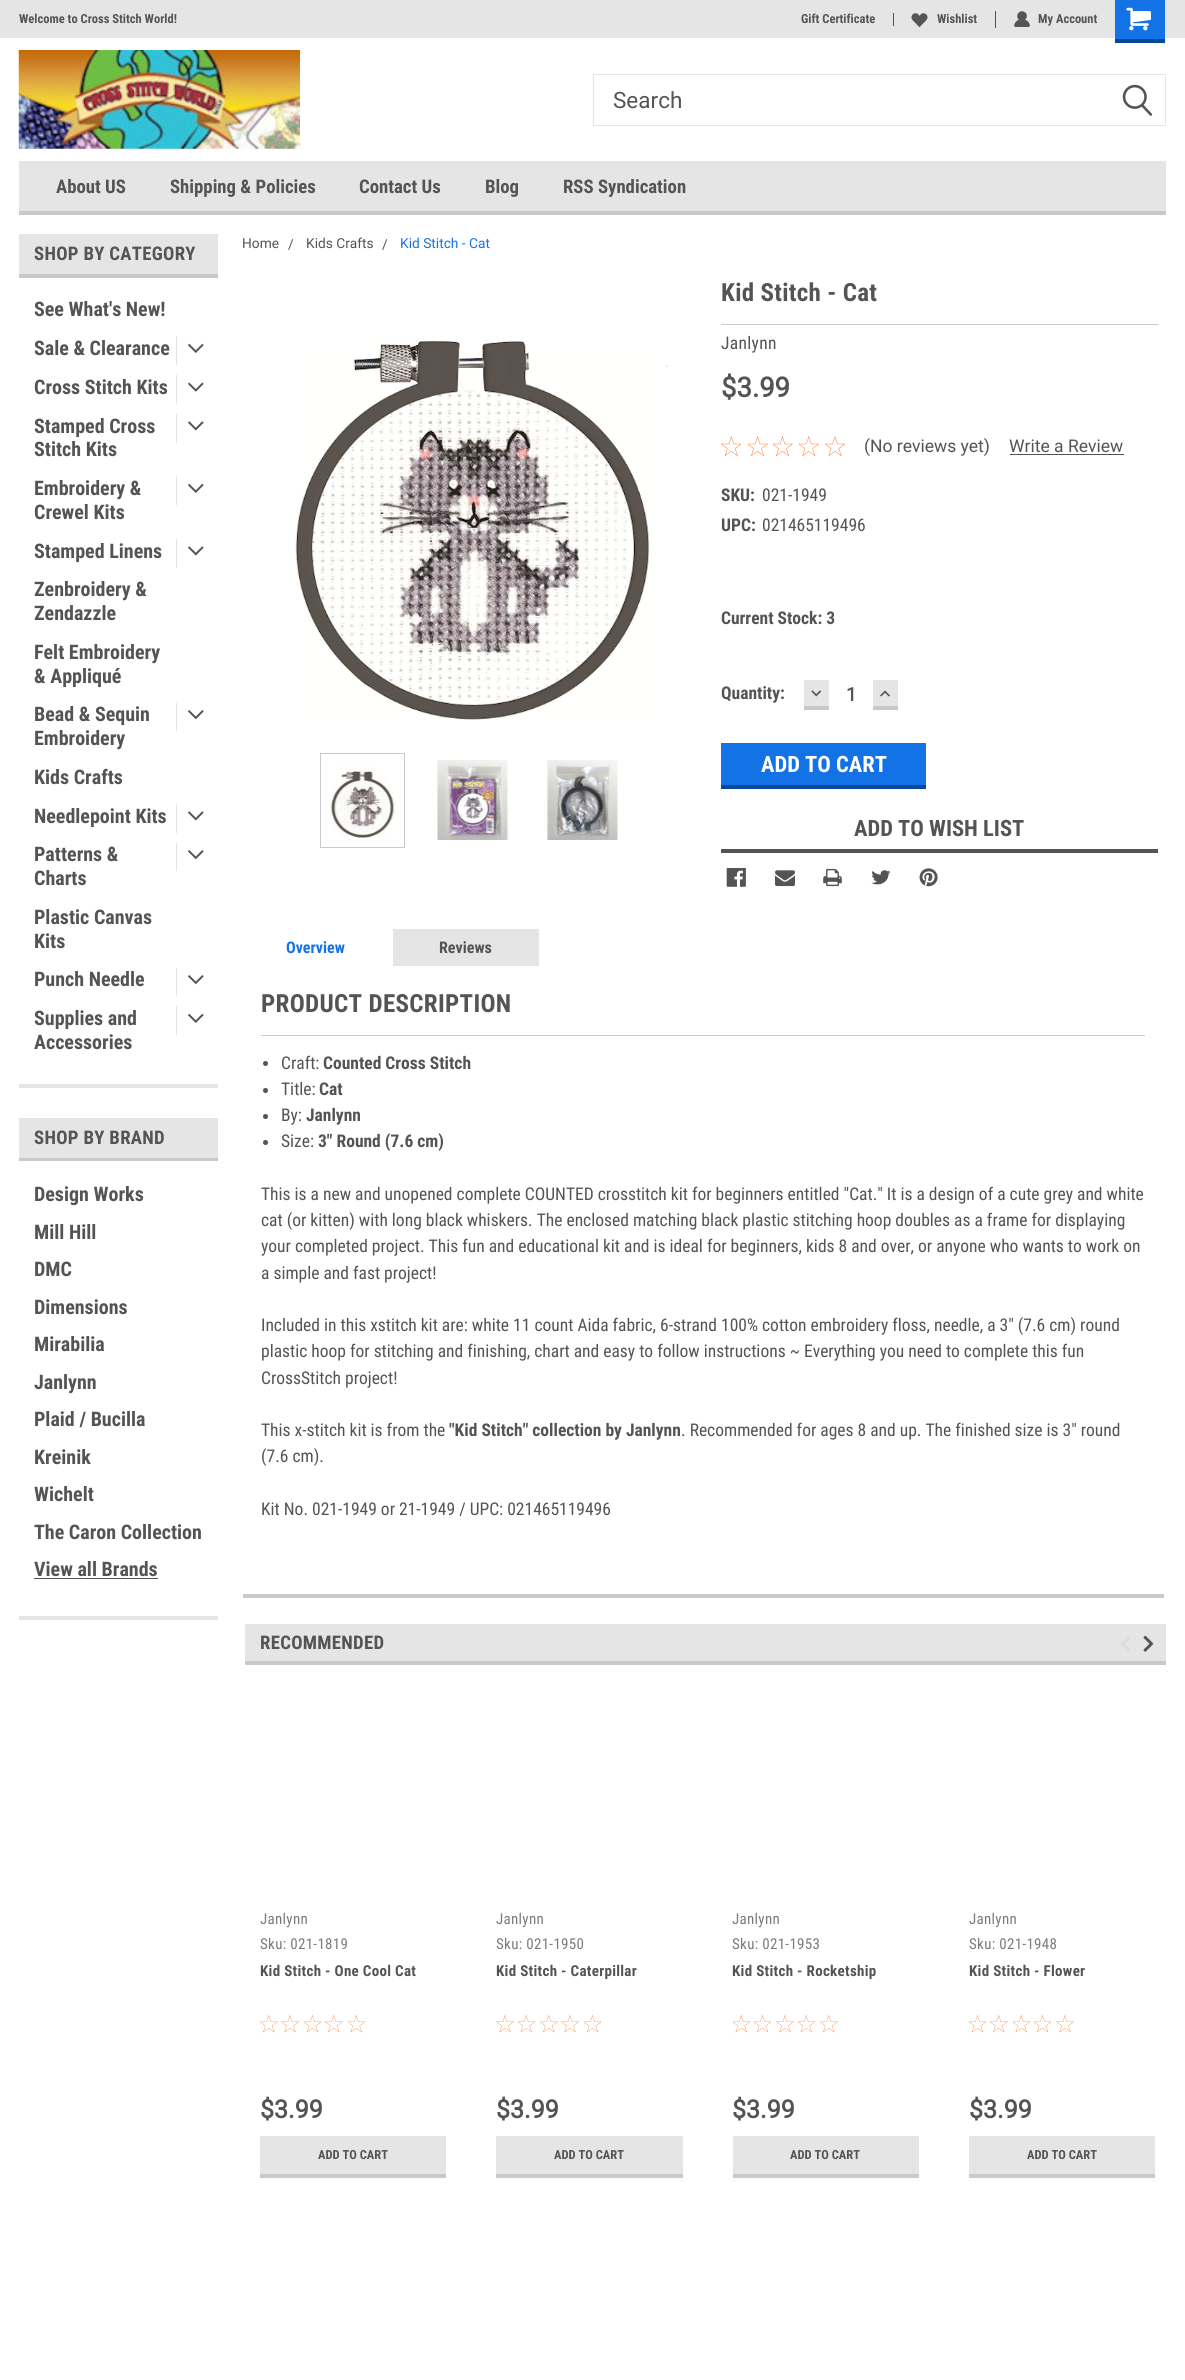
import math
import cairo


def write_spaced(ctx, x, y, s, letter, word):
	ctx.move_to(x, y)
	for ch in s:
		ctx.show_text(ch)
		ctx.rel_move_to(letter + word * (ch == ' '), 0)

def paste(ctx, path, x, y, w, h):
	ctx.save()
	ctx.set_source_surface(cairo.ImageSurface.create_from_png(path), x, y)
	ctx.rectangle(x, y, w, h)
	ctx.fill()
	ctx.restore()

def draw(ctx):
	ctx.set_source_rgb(1, 1, 1)
	ctx.paint()
	ctx.set_source_rgb(0.898, 0.898, 0.898)
	ctx.rectangle(0, 0, 1185, 38)
	ctx.fill()
	ctx.select_font_face('Roboto Condensed', cairo.FONT_SLANT_NORMAL, cairo.FONT_WEIGHT_BOLD)
	ctx.set_font_size(12.5)
	ctx.set_source_rgb(0.329, 0.329, 0.329)
	ctx.move_to(19, 23)
	ctx.show_text('Welcome to Cross Stitch World!')
	ctx.rectangle(893, 13, 1, 13)
	ctx.fill()
	ctx.move_to(801, 23)
	ctx.show_text('Gift Certificate')
	ctx.rectangle(995, 11, 1, 17)
	ctx.fill()
	paste(ctx, 'media/1.png', 911, 13, 17, 15)
	ctx.move_to(937, 23)
	ctx.show_text('Wishlist')
	paste(ctx, 'media/2.png', 1014, 11, 16, 16)
	ctx.move_to(1038, 23)
	ctx.show_text('My Account')
	ctx.set_source_rgb(0.078, 0.451, 0.902)
	ctx.rectangle(1115, 0, 50, 39)
	ctx.fill()
	ctx.set_source_rgb(0.027, 0.286, 0.6)
	ctx.rectangle(1115, 39, 50, 4)
	ctx.fill()
	paste(ctx, 'media/3.png', 1126, 7, 25, 24)
	paste(ctx, 'media/4.png', 18, 50, 282, 99)
	ctx.rectangle(593.5, 74.5, 572, 51)
	ctx.set_source_rgb(0.898, 0.898, 0.898)
	ctx.set_line_width(1)
	ctx.stroke()
	ctx.select_font_face('Roboto')
	ctx.set_font_size(22.5)
	ctx.set_source_rgb(0.329, 0.329, 0.329)
	ctx.move_to(613, 108)
	ctx.show_text('Search')
	paste(ctx, 'media/5.png', 1122, 84, 31, 32)
	ctx.set_source_rgb(0.898, 0.898, 0.898)
	ctx.rectangle(19, 161, 1147, 50)
	ctx.fill()
	ctx.set_source_rgb(0.788, 0.788, 0.788)
	ctx.rectangle(19, 211, 1147, 4)
	ctx.fill()
	ctx.select_font_face('Roboto Condensed', cairo.FONT_SLANT_NORMAL, cairo.FONT_WEIGHT_BOLD)
	ctx.set_font_size(18.75)
	ctx.set_source_rgb(0.329, 0.329, 0.329)
	for x, y, s in [
		(56, 193, 'About US'),
		(170, 193, 'Shipping & Policies'),
		(359, 193, 'Contact Us'),
		(485, 193, 'Blog'),
		(563, 193, 'RSS Syndication'),
	]:
		ctx.move_to(x, y)
		ctx.show_text(s)
	ctx.set_source_rgb(0.898, 0.898, 0.898)
	ctx.rectangle(19, 1084, 204, 4)
	ctx.rectangle(19, 234, 199, 40)
	ctx.fill()
	ctx.set_source_rgb(0.788, 0.788, 0.788)
	ctx.rectangle(19, 274, 204, 4)
	ctx.fill()
	ctx.set_source_rgb(0.329, 0.329, 0.329)
	write_spaced(ctx, 34, 260, 'SHOP BY CATEGORY', 0.3, 0)
	ctx.set_font_size(20)
	ctx.move_to(34, 316)
	ctx.show_text('See What\'s New!')
	ctx.move_to(34, 355)
	ctx.show_text('Sale & Clearance')
	ctx.set_source_rgb(0.898, 0.898, 0.898)
	ctx.rectangle(176, 336, 1, 29)
	ctx.fill()
	paste(ctx, 'media/6.png', 188, 343, 16, 10)
	ctx.set_source_rgb(0.329, 0.329, 0.329)
	ctx.move_to(34, 394)
	ctx.show_text('Cross Stitch Kits')
	ctx.set_source_rgb(0.898, 0.898, 0.898)
	ctx.rectangle(176, 375, 1, 29)
	ctx.fill()
	paste(ctx, 'media/7.png', 188, 382, 16, 10)
	ctx.set_source_rgb(0.329, 0.329, 0.329)
	ctx.move_to(34, 433)
	ctx.show_text('Stamped Cross')
	ctx.move_to(34, 456)
	ctx.show_text('Stitch Kits')
	ctx.set_source_rgb(0.898, 0.898, 0.898)
	ctx.rectangle(176, 414, 1, 29)
	ctx.fill()
	paste(ctx, 'media/8.png', 188, 421, 16, 10)
	ctx.set_source_rgb(0.329, 0.329, 0.329)
	ctx.move_to(34, 495)
	ctx.show_text('Embroidery &')
	ctx.move_to(34, 519)
	ctx.show_text('Crewel Kits')
	ctx.set_source_rgb(0.898, 0.898, 0.898)
	ctx.rectangle(176, 476, 1, 29)
	ctx.fill()
	paste(ctx, 'media/6.png', 188, 483, 16, 10)
	ctx.set_source_rgb(0.329, 0.329, 0.329)
	ctx.move_to(34, 558)
	ctx.show_text('Stamped Linens')
	ctx.set_source_rgb(0.898, 0.898, 0.898)
	ctx.rectangle(176, 539, 1, 29)
	ctx.fill()
	paste(ctx, 'media/8.png', 188, 546, 16, 10)
	ctx.set_source_rgb(0.329, 0.329, 0.329)
	for x, y, s in [
		(34, 596, 'Zenbroidery &'),
		(34, 620, 'Zendazzle'),
		(34, 659, 'Felt Embroidery'),
		(34, 683, '& Appliqué'),
		(34, 721, 'Bead & Sequin'),
		(34, 745, 'Embroidery'),
	]:
		ctx.move_to(x, y)
		ctx.show_text(s)
	ctx.set_source_rgb(0.898, 0.898, 0.898)
	ctx.rectangle(176, 703, 1, 28)
	ctx.fill()
	paste(ctx, 'media/9.png', 188, 710, 16, 10)
	ctx.set_source_rgb(0.329, 0.329, 0.329)
	ctx.move_to(34, 784)
	ctx.show_text('Kids Crafts')
	ctx.move_to(34, 823)
	ctx.show_text('Needlepoint Kits')
	ctx.set_source_rgb(0.898, 0.898, 0.898)
	ctx.rectangle(176, 804, 1, 29)
	ctx.fill()
	paste(ctx, 'media/8.png', 188, 811, 16, 10)
	ctx.set_source_rgb(0.329, 0.329, 0.329)
	ctx.move_to(34, 861)
	ctx.show_text('Patterns &')
	ctx.move_to(34, 885)
	ctx.show_text('Charts')
	ctx.set_source_rgb(0.898, 0.898, 0.898)
	ctx.rectangle(176, 843, 1, 28)
	ctx.fill()
	paste(ctx, 'media/9.png', 188, 850, 16, 10)
	ctx.set_source_rgb(0.329, 0.329, 0.329)
	for x, y, s in [
		(34, 924, 'Plastic Canvas'),
		(34, 948, 'Kits'),
		(34, 986, 'Punch Needle'),
	]:
		ctx.move_to(x, y)
		ctx.show_text(s)
	ctx.set_source_rgb(0.898, 0.898, 0.898)
	ctx.rectangle(176, 968, 1, 28)
	ctx.fill()
	paste(ctx, 'media/9.png', 188, 975, 16, 10)
	ctx.set_source_rgb(0.329, 0.329, 0.329)
	ctx.move_to(34, 1025)
	ctx.show_text('Supplies and')
	ctx.move_to(34, 1049)
	ctx.show_text('Accessories')
	ctx.set_source_rgb(0.898, 0.898, 0.898)
	ctx.rectangle(176, 1006, 1, 29)
	ctx.fill()
	paste(ctx, 'media/6.png', 188, 1013, 16, 10)
	ctx.rectangle(19, 1616, 204, 4)
	ctx.rectangle(19, 1118, 199, 40)
	ctx.fill()
	ctx.set_source_rgb(0.788, 0.788, 0.788)
	ctx.rectangle(19, 1158, 204, 3)
	ctx.fill()
	ctx.set_font_size(18.75)
	ctx.set_source_rgb(0.329, 0.329, 0.329)
	write_spaced(ctx, 34, 1144, 'SHOP BY BRAND', 0.3, 0)
	ctx.set_font_size(20)
	for x, y, s in [
		(34, 1201, 'Design Works'),
		(34, 1239, 'Mill Hill'),
		(34, 1276, 'DMC'),
		(34, 1314, 'Dimensions'),
		(34, 1351, 'Mirabilia'),
		(34, 1389, 'Janlynn'),
		(34, 1426, 'Plaid / Bucilla'),
		(34, 1464, 'Kreinik'),
		(34, 1501, 'Wichelt'),
		(34, 1539, 'The Caron Collection'),
		(34, 1576, 'View all Brands'),
	]:
		ctx.move_to(x, y)
		ctx.show_text(s)
	ctx.rectangle(34, 1578, 124, 1)
	ctx.fill()
	ctx.set_source_rgb(1, 1, 1)
	ctx.rectangle(218, 274, 5, 1346)
	ctx.fill()
	ctx.select_font_face('Roboto')
	ctx.set_font_size(13.75)
	ctx.set_source_rgb(0.329, 0.329, 0.329)
	for x, y, s in [
		(242, 248, 'Home'),
		(288, 249, '/'),
		(306, 248, 'Kids Crafts'),
		(382, 249, '/'),
	]:
		ctx.move_to(x, y)
		ctx.show_text(s)
	ctx.set_source_rgb(0.078, 0.451, 0.902)
	ctx.move_to(400, 248)
	ctx.show_text('Kid Stitch - Cat')
	paste(ctx, 'media/10.png', 295, 340, 373, 380)
	ctx.rectangle(320.5, 753.5, 84, 94)
	ctx.set_source_rgb(0.788, 0.788, 0.788)
	ctx.stroke()
	paste(ctx, 'media/11.png', 328, 766, 68, 73)
	paste(ctx, 'media/12.png', 437, 760, 72, 80)
	paste(ctx, 'media/13.png', 547, 760, 72, 80)
	ctx.rectangle(721, 324, 437, 1)
	ctx.fill()
	ctx.select_font_face('Roboto Condensed', cairo.FONT_SLANT_NORMAL, cairo.FONT_WEIGHT_BOLD)
	ctx.set_font_size(25)
	ctx.set_source_rgb(0.329, 0.329, 0.329)
	write_spaced(ctx, 721, 301, 'Kid Stitch - Cat', 0.3, 0)
	ctx.select_font_face('Roboto Condensed')
	ctx.set_font_size(17.5)
	write_spaced(ctx, 721, 349, 'Janlynn', 0.3, 0)
	ctx.select_font_face('Roboto', cairo.FONT_SLANT_NORMAL, cairo.FONT_WEIGHT_BOLD)
	ctx.set_font_size(27.5)
	ctx.move_to(721, 397)
	ctx.show_text('$3.99')
	paste(ctx, 'media/14.png', 721, 436, 20, 20)
	paste(ctx, 'media/15.png', 748, 436, 20, 20)
	paste(ctx, 'media/15.png', 773, 436, 20, 20)
	paste(ctx, 'media/16.png', 799, 436, 20, 20)
	paste(ctx, 'media/17.png', 825, 436, 20, 20)
	ctx.select_font_face('Roboto')
	ctx.set_font_size(17.5)
	ctx.move_to(864, 452)
	ctx.show_text('(No reviews yet)')
	ctx.move_to(1009, 452)
	ctx.show_text('Write a Review')
	ctx.rectangle(1010, 454, 114, 1)
	ctx.fill()
	ctx.select_font_face('Roboto Condensed', cairo.FONT_SLANT_NORMAL, cairo.FONT_WEIGHT_BOLD)
	ctx.move_to(721, 501)
	ctx.show_text('SKU:')
	ctx.select_font_face('Roboto Condensed')
	ctx.move_to(762, 501)
	ctx.show_text('021-1949')
	ctx.select_font_face('Roboto Condensed', cairo.FONT_SLANT_NORMAL, cairo.FONT_WEIGHT_BOLD)
	ctx.move_to(721, 531)
	ctx.show_text('UPC:')
	ctx.select_font_face('Roboto Condensed')
	ctx.move_to(762, 531)
	ctx.show_text('021465119496')
	ctx.select_font_face('Roboto Condensed', cairo.FONT_SLANT_NORMAL, cairo.FONT_WEIGHT_BOLD)
	ctx.move_to(721, 624)
	ctx.show_text('Current Stock: 3')
	ctx.move_to(721, 699)
	ctx.show_text('Quantity:')
	ctx.set_source_rgb(0.898, 0.898, 0.898)
	ctx.rectangle(804, 680, 25, 26)
	ctx.fill()
	ctx.set_source_rgb(0.788, 0.788, 0.788)
	ctx.rectangle(804, 706, 25, 4)
	ctx.fill()
	paste(ctx, 'media/18.png', 811, 690, 11, 7)
	ctx.select_font_face('Roboto', cairo.FONT_SLANT_NORMAL, cairo.FONT_WEIGHT_BOLD)
	ctx.set_font_size(18.75)
	ctx.set_source_rgb(0.329, 0.329, 0.329)
	ctx.move_to(846, 701)
	ctx.show_text('1')
	ctx.set_source_rgb(0.898, 0.898, 0.898)
	ctx.rectangle(873, 680, 25, 26)
	ctx.fill()
	ctx.set_source_rgb(0.788, 0.788, 0.788)
	ctx.rectangle(873, 706, 25, 4)
	ctx.fill()
	paste(ctx, 'media/19.png', 880, 690, 10, 7)
	ctx.set_source_rgb(0.078, 0.451, 0.902)
	ctx.rectangle(721, 743, 205, 42)
	ctx.fill()
	ctx.set_source_rgb(0.027, 0.286, 0.6)
	ctx.rectangle(721, 785, 205, 4)
	ctx.fill()
	ctx.select_font_face('Roboto Condensed', cairo.FONT_SLANT_NORMAL, cairo.FONT_WEIGHT_BOLD)
	ctx.set_font_size(22.5)
	ctx.set_source_rgb(1, 1, 1)
	ctx.move_to(761, 772)
	ctx.show_text('ADD TO CART')
	ctx.set_source_rgb(0.329, 0.329, 0.329)
	ctx.rectangle(721, 849, 437, 4)
	ctx.fill()
	ctx.move_to(854, 836)
	ctx.show_text('ADD TO WISH LIST')
	paste(ctx, 'media/20.png', 726, 868, 20, 19)
	paste(ctx, 'media/21.png', 775, 870, 20, 17)
	paste(ctx, 'media/22.png', 823, 868, 19, 19)
	paste(ctx, 'media/23.png', 871, 870, 20, 15)
	paste(ctx, 'media/24.png', 919, 868, 19, 19)
	ctx.set_font_size(16)
	ctx.set_source_rgb(0.078, 0.451, 0.902)
	ctx.move_to(286, 953)
	ctx.show_text('Overview')
	ctx.set_source_rgb(0.898, 0.898, 0.898)
	ctx.rectangle(393, 929, 146, 37)
	ctx.fill()
	ctx.set_source_rgb(0.329, 0.329, 0.329)
	ctx.move_to(439, 953)
	ctx.show_text('Reviews')
	ctx.set_source_rgb(0.788, 0.788, 0.788)
	ctx.rectangle(243, 1594, 921, 4)
	ctx.fill()
	ctx.rectangle(261, 1035, 884, 1)
	ctx.fill()
	ctx.set_font_size(25)
	ctx.set_source_rgb(0.329, 0.329, 0.329)
	write_spaced(ctx, 261, 1012, 'PRODUCT DESCRIPTION', 0.3, 0)
	ctx.new_path()
	ctx.arc(265.5, 1063.5, 2.5, 0, 2 * math.pi)
	ctx.fill()
	ctx.select_font_face('Roboto Condensed')
	ctx.set_font_size(17.5)
	ctx.move_to(281, 1069)
	ctx.show_text('Craft:')
	ctx.select_font_face('Roboto Condensed', cairo.FONT_SLANT_NORMAL, cairo.FONT_WEIGHT_BOLD)
	ctx.move_to(323, 1069)
	ctx.show_text('Counted Cross Stitch')
	ctx.new_path()
	ctx.arc(265.5, 1090.5, 2.5, 0, 2 * math.pi)
	ctx.fill()
	ctx.select_font_face('Roboto Condensed')
	ctx.move_to(281, 1095)
	ctx.show_text('Title:')
	ctx.select_font_face('Roboto Condensed', cairo.FONT_SLANT_NORMAL, cairo.FONT_WEIGHT_BOLD)
	ctx.move_to(319, 1095)
	ctx.show_text('Cat')
	ctx.new_path()
	ctx.arc(265.5, 1116.5, 2.5, 0, 2 * math.pi)
	ctx.fill()
	ctx.select_font_face('Roboto Condensed')
	ctx.move_to(281, 1121)
	ctx.show_text('By:')
	ctx.select_font_face('Roboto Condensed', cairo.FONT_SLANT_NORMAL, cairo.FONT_WEIGHT_BOLD)
	ctx.move_to(306, 1121)
	ctx.show_text('Janlynn')
	ctx.new_path()
	ctx.arc(265.5, 1142.5, 2.5, 0, 2 * math.pi)
	ctx.fill()
	ctx.select_font_face('Roboto Condensed')
	ctx.move_to(281, 1147)
	ctx.show_text('Size:')
	ctx.select_font_face('Roboto Condensed', cairo.FONT_SLANT_NORMAL, cairo.FONT_WEIGHT_BOLD)
	ctx.move_to(318, 1147)
	ctx.show_text('3" Round (7.6 cm)')
	ctx.select_font_face('Roboto Condensed')
	for x, y, s in [
		(261, 1200, 'This is a new and unopened complete COUNTED crosstitch kit for beginners entitled "Cat." It is a design of a cute grey and white'),
		(261, 1226, 'cat (or kitten) with long black whiskers. The enclosed matching black plastic stitching hoop doubles as a frame for displaying'),
		(261, 1252, 'your completed project. This fun and educational kit and is ideal for beginners, kids 8 and over, or anyone who wants to work on'),
		(261, 1279, 'a simple and fast project!'),
		(261, 1331, 'Included in this xstitch kit are: white 11 count Aida fabric, 6-strand 100% cotton embroidery floss, needle, a 3" (7.6 cm) round'),
		(261, 1357, 'plastic hoop for stitching and finishing, chart and easy to follow instructions ~ Everything you need to complete this fun'),
		(261, 1384, 'CrossStitch project!'),
		(261, 1436, 'This x-stitch kit is from the'),
	]:
		ctx.move_to(x, y)
		ctx.show_text(s)
	ctx.select_font_face('Roboto Condensed', cairo.FONT_SLANT_NORMAL, cairo.FONT_WEIGHT_BOLD)
	ctx.move_to(449, 1436)
	ctx.show_text('"Kid Stitch" collection by Janlynn')
	ctx.select_font_face('Roboto Condensed')
	for x, y, s in [
		(681, 1436, '. Recommended for ages 8 and up. The finished size is 3" round'),
		(261, 1462, '(7.6 cm).'),
		(261, 1515, 'Kit No. 021-1949 or 21-1949 / UPC: 021465119496'),
	]:
		ctx.move_to(x, y)
		ctx.show_text(s)
	ctx.set_source_rgb(0.898, 0.898, 0.898)
	ctx.rectangle(245, 1624, 921, 37)
	ctx.fill()
	ctx.set_source_rgb(0.788, 0.788, 0.788)
	ctx.rectangle(245, 1661, 921, 4)
	ctx.fill()
	ctx.select_font_face('Roboto Condensed', cairo.FONT_SLANT_NORMAL, cairo.FONT_WEIGHT_BOLD)
	ctx.set_font_size(18.75)
	ctx.set_source_rgb(0.329, 0.329, 0.329)
	write_spaced(ctx, 260, 1649, 'RECOMMENDED', 0.3, 0)
	paste(ctx, 'media/25.png', 1121, 1636, 10, 16)
	paste(ctx, 'media/26.png', 1143, 1635, 11, 17)
	ctx.select_font_face('Roboto Condensed')
	ctx.set_font_size(15)
	ctx.set_source_rgb(0.482, 0.482, 0.482)
	write_spaced(ctx, 260, 1924, 'Janlynn', 0.3, 0)
	write_spaced(ctx, 260, 1949, 'Sku: 021-1819', 0.3, 0)
	ctx.select_font_face('Roboto Condensed', cairo.FONT_SLANT_NORMAL, cairo.FONT_WEIGHT_BOLD)
	ctx.set_source_rgb(0.329, 0.329, 0.329)
	write_spaced(ctx, 260, 1976, 'Kid Stitch - One Cool Cat', 0.3, 0)
	paste(ctx, 'media/27.png', 260, 2015, 18, 18)
	paste(ctx, 'media/28.png', 281, 2015, 18, 18)
	paste(ctx, 'media/29.png', 304, 2015, 17, 18)
	paste(ctx, 'media/27.png', 325, 2015, 18, 18)
	paste(ctx, 'media/30.png', 348, 2015, 17, 18)
	ctx.select_font_face('Roboto', cairo.FONT_SLANT_NORMAL, cairo.FONT_WEIGHT_BOLD)
	ctx.set_font_size(25)
	ctx.move_to(260, 2118)
	ctx.show_text('$3.99')
	ctx.set_source_rgb(0.898, 0.898, 0.898)
	ctx.rectangle(260, 2136, 186, 38)
	ctx.fill()
	ctx.set_source_rgb(0.788, 0.788, 0.788)
	ctx.rectangle(260, 2174, 186, 4)
	ctx.fill()
	ctx.select_font_face('Roboto Condensed', cairo.FONT_SLANT_NORMAL, cairo.FONT_WEIGHT_BOLD)
	ctx.set_font_size(12.5)
	ctx.set_source_rgb(0.329, 0.329, 0.329)
	ctx.move_to(318, 2159)
	ctx.show_text('ADD TO CART')
	ctx.select_font_face('Roboto Condensed')
	ctx.set_font_size(15)
	ctx.set_source_rgb(0.482, 0.482, 0.482)
	write_spaced(ctx, 496, 1924, 'Janlynn', 0.3, 0)
	write_spaced(ctx, 496, 1949, 'Sku: 021-1950', 0.3, 0)
	ctx.select_font_face('Roboto Condensed', cairo.FONT_SLANT_NORMAL, cairo.FONT_WEIGHT_BOLD)
	ctx.set_source_rgb(0.329, 0.329, 0.329)
	write_spaced(ctx, 496, 1976, 'Kid Stitch - Caterpillar', 0.3, 0)
	paste(ctx, 'media/28.png', 496, 2015, 18, 18)
	paste(ctx, 'media/30.png', 518, 2015, 17, 18)
	paste(ctx, 'media/27.png', 540, 2015, 18, 18)
	paste(ctx, 'media/28.png', 561, 2015, 18, 18)
	paste(ctx, 'media/29.png', 584, 2015, 17, 18)
	ctx.select_font_face('Roboto', cairo.FONT_SLANT_NORMAL, cairo.FONT_WEIGHT_BOLD)
	ctx.set_font_size(25)
	ctx.move_to(496, 2118)
	ctx.show_text('$3.99')
	ctx.set_source_rgb(0.898, 0.898, 0.898)
	ctx.rectangle(496, 2136, 187, 38)
	ctx.fill()
	ctx.set_source_rgb(0.788, 0.788, 0.788)
	ctx.rectangle(496, 2174, 187, 4)
	ctx.fill()
	ctx.select_font_face('Roboto Condensed', cairo.FONT_SLANT_NORMAL, cairo.FONT_WEIGHT_BOLD)
	ctx.set_font_size(12.5)
	ctx.set_source_rgb(0.329, 0.329, 0.329)
	ctx.move_to(554, 2159)
	ctx.show_text('ADD TO CART')
	ctx.select_font_face('Roboto Condensed')
	ctx.set_font_size(15)
	ctx.set_source_rgb(0.482, 0.482, 0.482)
	write_spaced(ctx, 732, 1924, 'Janlynn', 0.3, 0)
	write_spaced(ctx, 732, 1949, 'Sku: 021-1953', 0.3, 0)
	ctx.select_font_face('Roboto Condensed', cairo.FONT_SLANT_NORMAL, cairo.FONT_WEIGHT_BOLD)
	ctx.set_source_rgb(0.329, 0.329, 0.329)
	write_spaced(ctx, 732, 1976, 'Kid Stitch - Rocketship', 0.3, 0)
	paste(ctx, 'media/30.png', 733, 2015, 17, 18)
	paste(ctx, 'media/29.png', 754, 2015, 17, 18)
	paste(ctx, 'media/28.png', 776, 2015, 18, 18)
	paste(ctx, 'media/30.png', 798, 2015, 17, 18)
	paste(ctx, 'media/27.png', 820, 2015, 18, 18)
	ctx.select_font_face('Roboto', cairo.FONT_SLANT_NORMAL, cairo.FONT_WEIGHT_BOLD)
	ctx.set_font_size(25)
	ctx.move_to(732, 2118)
	ctx.show_text('$3.99')
	ctx.set_source_rgb(0.898, 0.898, 0.898)
	ctx.rectangle(733, 2136, 186, 38)
	ctx.fill()
	ctx.set_source_rgb(0.788, 0.788, 0.788)
	ctx.rectangle(733, 2174, 186, 4)
	ctx.fill()
	ctx.select_font_face('Roboto Condensed', cairo.FONT_SLANT_NORMAL, cairo.FONT_WEIGHT_BOLD)
	ctx.set_font_size(12.5)
	ctx.set_source_rgb(0.329, 0.329, 0.329)
	ctx.move_to(790, 2159)
	ctx.show_text('ADD TO CART')
	ctx.select_font_face('Roboto Condensed')
	ctx.set_font_size(15)
	ctx.set_source_rgb(0.482, 0.482, 0.482)
	write_spaced(ctx, 969, 1924, 'Janlynn', 0.3, 0)
	write_spaced(ctx, 969, 1949, 'Sku: 021-1948', 0.3, 0)
	ctx.select_font_face('Roboto Condensed', cairo.FONT_SLANT_NORMAL, cairo.FONT_WEIGHT_BOLD)
	ctx.set_source_rgb(0.329, 0.329, 0.329)
	write_spaced(ctx, 969, 1976, 'Kid Stitch - Flower', 0.3, 0)
	paste(ctx, 'media/29.png', 969, 2015, 17, 18)
	paste(ctx, 'media/27.png', 990, 2015, 18, 18)
	paste(ctx, 'media/30.png', 1013, 2015, 17, 18)
	paste(ctx, 'media/29.png', 1034, 2015, 17, 18)
	paste(ctx, 'media/28.png', 1056, 2015, 18, 18)
	ctx.select_font_face('Roboto', cairo.FONT_SLANT_NORMAL, cairo.FONT_WEIGHT_BOLD)
	ctx.set_font_size(25)
	ctx.move_to(969, 2118)
	ctx.show_text('$3.99')
	ctx.set_source_rgb(0.898, 0.898, 0.898)
	ctx.rectangle(969, 2136, 186, 38)
	ctx.fill()
	ctx.set_source_rgb(0.788, 0.788, 0.788)
	ctx.rectangle(969, 2174, 186, 4)
	ctx.fill()
	ctx.select_font_face('Roboto Condensed', cairo.FONT_SLANT_NORMAL, cairo.FONT_WEIGHT_BOLD)
	ctx.set_font_size(12.5)
	ctx.set_source_rgb(0.329, 0.329, 0.329)
	ctx.move_to(1027, 2159)
	ctx.show_text('ADD TO CART')


surface = cairo.ImageSurface(cairo.FORMAT_RGB24, 1185, 2380)
ctx = cairo.Context(surface)
options = cairo.FontOptions()
options.set_hint_metrics(cairo.HINT_METRICS_OFF)
options.set_hint_style(cairo.HINT_STYLE_NONE)
ctx.set_font_options(options)
ctx.set_miter_limit(4)
draw(ctx)
surface.write_to_png('image.png')
